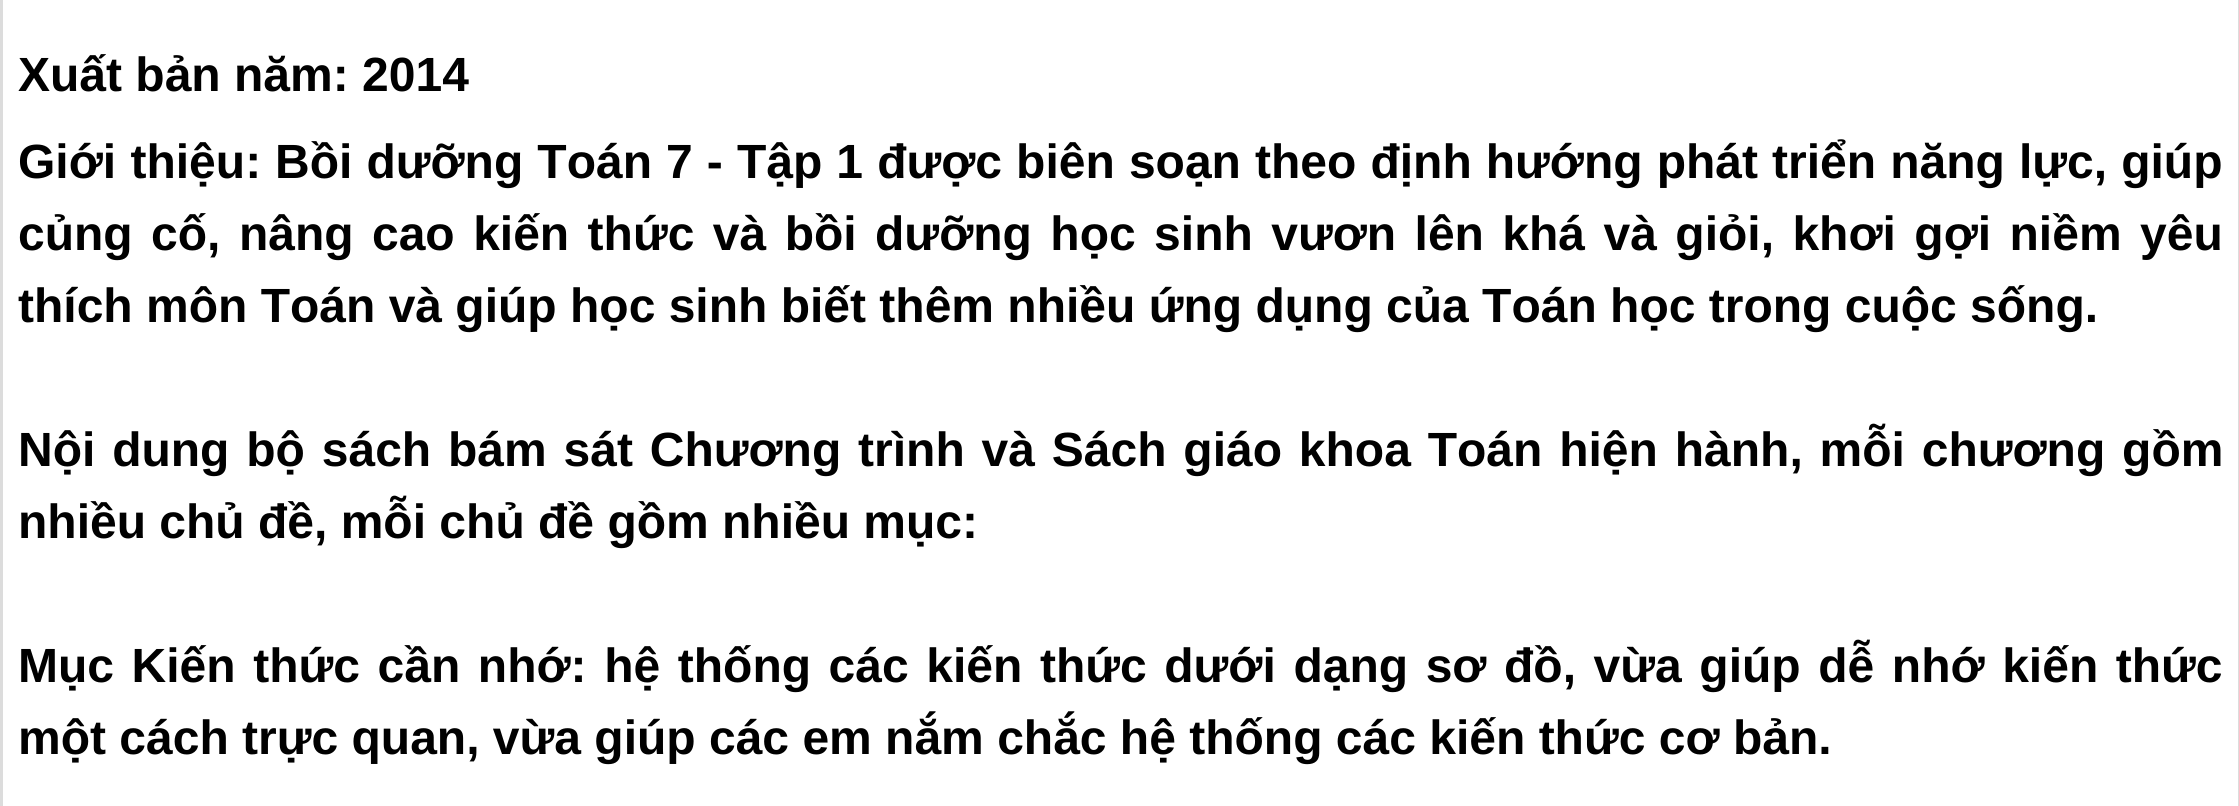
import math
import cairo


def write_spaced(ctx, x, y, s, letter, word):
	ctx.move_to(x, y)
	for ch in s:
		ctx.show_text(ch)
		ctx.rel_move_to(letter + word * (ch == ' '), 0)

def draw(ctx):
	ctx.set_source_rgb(1, 1, 1)
	ctx.paint()
	ctx.set_source_rgb(0.863, 0.863, 0.863)
	ctx.rectangle(2238, 0, 1, 806)
	ctx.fill()
	ctx.rectangle(0, 0, 3, 806)
	ctx.fill()
	ctx.select_font_face('Liberation Sans', cairo.FONT_SLANT_NORMAL, cairo.FONT_WEIGHT_BOLD)
	ctx.set_font_size(48)
	ctx.set_source_rgb(0, 0, 0)
	ctx.move_to(18, 91)
	ctx.show_text('Xuất bản năm: 2014')
	write_spaced(ctx, 18, 178, 'Giới thiệu:', 0, 1)
	write_spaced(ctx, 275, 178, 'Bồi dưỡng Toán 7 - Tập 1 được biên soạn theo định hướng phát triển năng lực, giúp', 0, 0.75)
	write_spaced(ctx, 18, 250, 'củng cố, nâng cao kiến thức và bồi dưỡng học sinh vươn lên khá và giỏi, khơi gợi niềm yêu', 0, 5.1)
	ctx.move_to(18, 322)
	ctx.show_text('thích môn Toán và giúp học sinh biết thêm nhiều ứng dụng của Toán học trong cuộc sống.')
	write_spaced(ctx, 18, 466, 'Nội dung bộ sách bám sát Chương trình và Sách giáo khoa Toán hiện hành, mỗi chương gồm', 0, 3.5)
	ctx.move_to(18, 538)
	ctx.show_text('nhiều chủ đề, mỗi chủ đề gồm nhiều mục:')
	write_spaced(ctx, 18, 682, 'Mục Kiến thức cần nhớ: hệ thống các kiến thức dưới dạng sơ đồ, vừa giúp dễ nhớ kiến thức', 0, 4.25)
	ctx.move_to(18, 754)
	ctx.show_text('một cách trực quan, vừa giúp các em nắm chắc hệ thống các kiến thức cơ bản.')


surface = cairo.ImageSurface(cairo.FORMAT_RGB24, 2239, 806)
ctx = cairo.Context(surface)
options = cairo.FontOptions()
options.set_hint_metrics(cairo.HINT_METRICS_OFF)
options.set_hint_style(cairo.HINT_STYLE_NONE)
ctx.set_font_options(options)
ctx.set_miter_limit(4)
draw(ctx)
surface.write_to_png('image.png')
